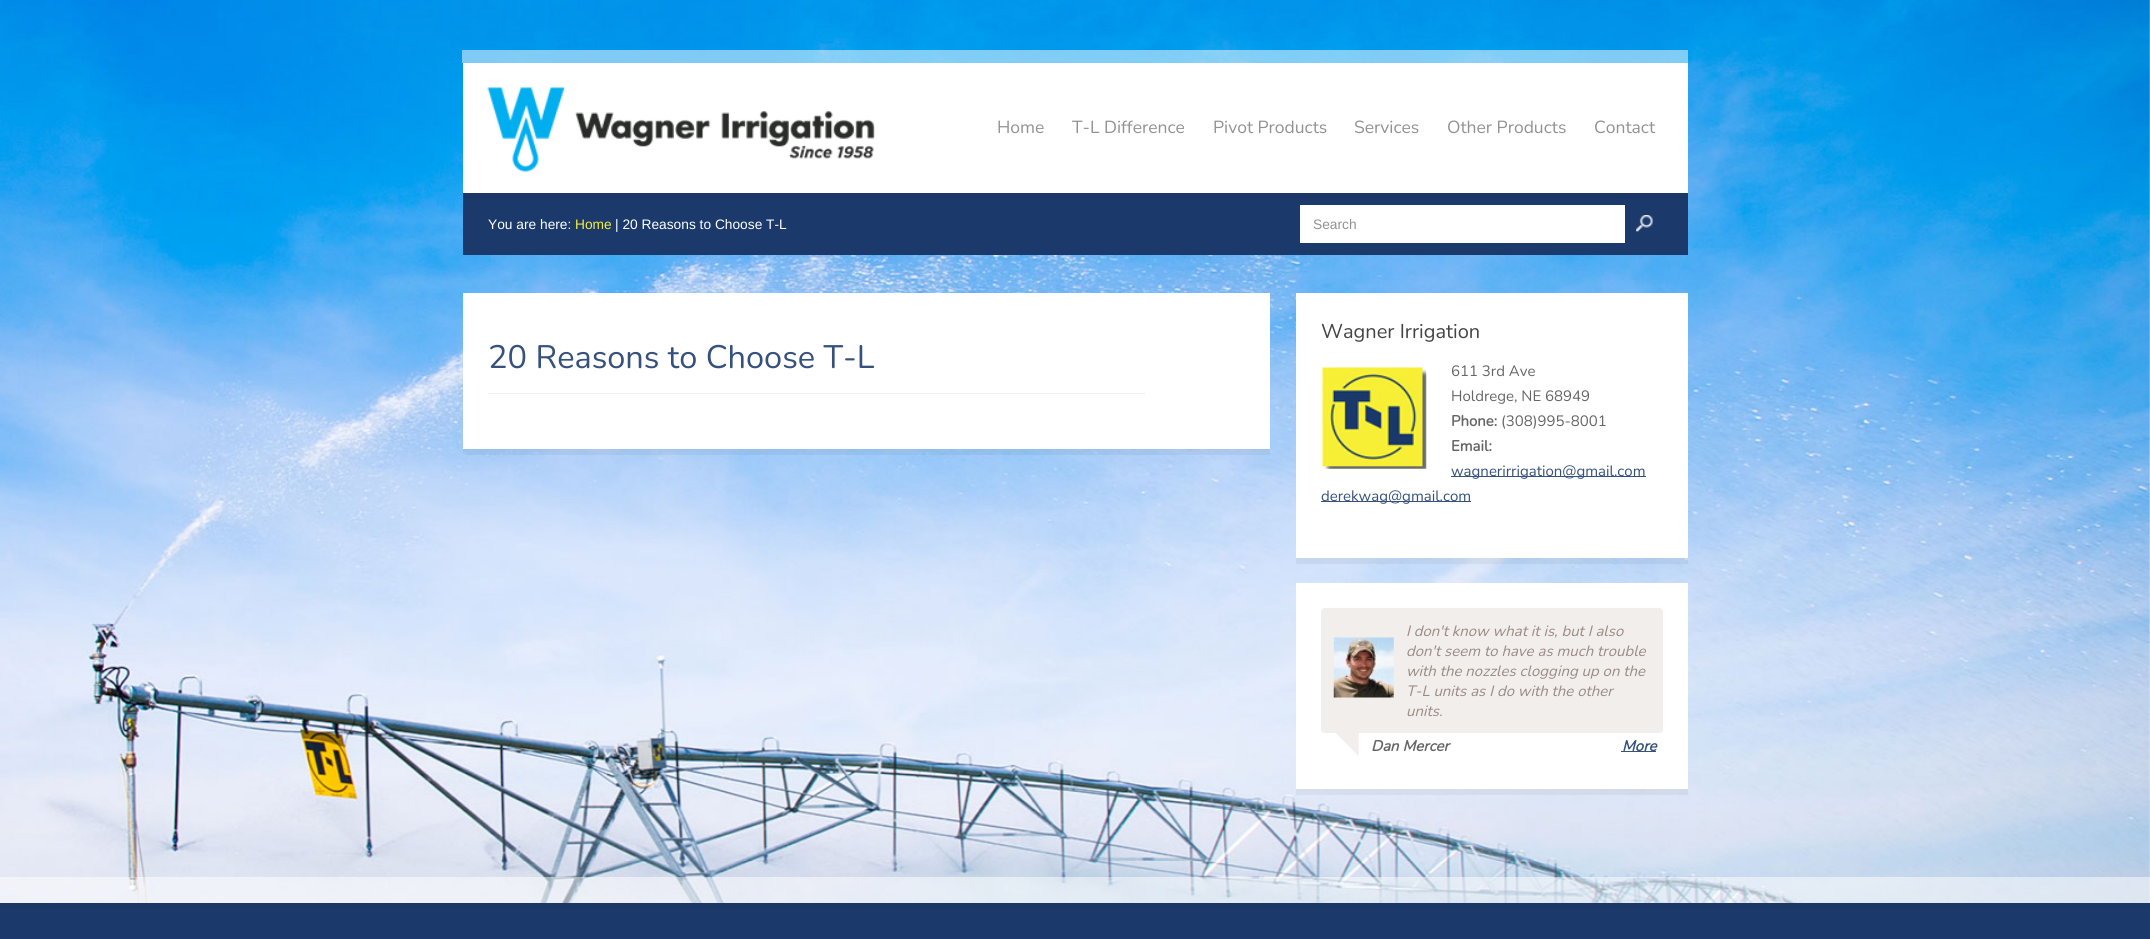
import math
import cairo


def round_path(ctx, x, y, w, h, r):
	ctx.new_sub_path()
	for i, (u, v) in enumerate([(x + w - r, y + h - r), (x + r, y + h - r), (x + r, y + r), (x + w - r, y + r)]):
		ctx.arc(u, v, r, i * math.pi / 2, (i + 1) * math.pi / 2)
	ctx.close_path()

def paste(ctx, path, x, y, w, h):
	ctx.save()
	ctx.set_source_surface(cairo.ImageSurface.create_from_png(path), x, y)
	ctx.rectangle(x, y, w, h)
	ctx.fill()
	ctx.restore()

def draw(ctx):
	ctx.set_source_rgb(1, 1, 1)
	ctx.paint()
	paste(ctx, 'media/1.png', 0, 0, 2150, 903)
	ctx.set_source_rgba(1, 1, 1, 0.5)
	ctx.rectangle(462, 50, 1226, 13)
	ctx.fill()
	ctx.set_source_rgb(1, 1, 1)
	ctx.rectangle(463, 63, 1225, 130)
	ctx.fill()
	paste(ctx, 'media/2.png', 487, 87, 388, 86)
	ctx.select_font_face('Nunito ExtraLight')
	ctx.set_font_size(17.5)
	ctx.set_source_rgb(0.573, 0.573, 0.573)
	for x, y, s in [
		(997, 133, 'Home'),
		(1072, 133, 'T-L Difference'),
		(1213, 133, 'Pivot Products'),
		(1354, 133, 'Services'),
		(1447, 133, 'Other Products'),
		(1594, 133, 'Contact'),
	]:
		ctx.move_to(x, y)
		ctx.show_text(s)
	ctx.set_source_rgb(0.106, 0.227, 0.42)
	ctx.rectangle(463, 199, 1225, 56)
	ctx.fill()
	ctx.set_source_rgb(0.102, 0.216, 0.4)
	ctx.rectangle(463, 193, 1225, 6)
	ctx.fill()
	ctx.select_font_face('Liberation Sans')
	ctx.set_font_size(13.75)
	ctx.set_source_rgb(1, 1, 1)
	ctx.move_to(488, 229)
	ctx.show_text('You are here:')
	ctx.set_source_rgb(0.969, 0.937, 0.208)
	ctx.move_to(575, 229)
	ctx.show_text('Home')
	ctx.set_source_rgb(1, 1, 1)
	ctx.move_to(615, 229)
	ctx.show_text('| 20 Reasons to Choose T-L')
	ctx.rectangle(1300, 205, 325, 38)
	ctx.fill()
	ctx.set_source_rgb(0.573, 0.573, 0.573)
	ctx.move_to(1313, 229)
	ctx.show_text('Search')
	paste(ctx, 'media/3.png', 1636, 215, 17, 17)
	ctx.set_source_rgba(0, 0, 0, 0.05)
	ctx.rectangle(463, 449, 807, 6)
	ctx.fill()
	ctx.set_source_rgb(1, 1, 1)
	ctx.rectangle(463, 293, 807, 156)
	ctx.fill()
	ctx.select_font_face('Nunito ExtraLight')
	ctx.set_font_size(32.5)
	ctx.set_source_rgb(0.212, 0.318, 0.486)
	ctx.move_to(488, 368)
	ctx.show_text('20 Reasons to Choose T-L')
	ctx.set_source_rgb(0.933, 0.933, 0.933)
	ctx.rectangle(488, 393, 657, 1)
	ctx.fill()
	ctx.set_source_rgba(0, 0, 0, 0.05)
	ctx.new_path()
	ctx.move_to(1296, 299)
	ctx.line_to(1296, 564)
	ctx.line_to(1688, 564)
	ctx.line_to(1688, 299)
	ctx.line_to(1688, 558)
	ctx.line_to(1296, 558)
	ctx.close_path()
	ctx.fill()
	ctx.set_source_rgb(1, 1, 1)
	ctx.rectangle(1296, 293, 392, 265)
	ctx.fill()
	ctx.set_font_size(20)
	ctx.set_source_rgb(0.267, 0.267, 0.267)
	ctx.move_to(1321, 338)
	ctx.show_text('Wagner Irrigation')
	paste(ctx, 'media/4.png', 1322, 367, 105, 102)
	ctx.set_font_size(15)
	ctx.set_source_rgb(0.4, 0.4, 0.4)
	ctx.move_to(1451, 376)
	ctx.show_text('611 3rd Ave')
	ctx.move_to(1451, 401)
	ctx.show_text('Holdrege, NE 68949')
	ctx.select_font_face('Nunito', cairo.FONT_SLANT_NORMAL, cairo.FONT_WEIGHT_BOLD)
	ctx.move_to(1451, 426)
	ctx.show_text('Phone:')
	ctx.select_font_face('Nunito ExtraLight')
	ctx.move_to(1501, 426)
	ctx.show_text('(308)995-8001')
	ctx.select_font_face('Nunito', cairo.FONT_SLANT_NORMAL, cairo.FONT_WEIGHT_BOLD)
	ctx.move_to(1451, 451)
	ctx.show_text('Email:')
	ctx.set_source_rgb(0.212, 0.318, 0.486)
	ctx.rectangle(1451, 476, 195, 1)
	ctx.fill()
	ctx.select_font_face('Nunito ExtraLight')
	ctx.move_to(1451, 476)
	ctx.show_text('wagnerirrigation@gmail.com')
	ctx.rectangle(1321, 501, 150, 1)
	ctx.fill()
	ctx.move_to(1321, 501)
	ctx.show_text('derekwag@gmail.com')
	ctx.set_source_rgba(0, 0, 0, 0.05)
	ctx.new_path()
	ctx.move_to(1296, 589)
	ctx.line_to(1296, 795)
	ctx.line_to(1688, 795)
	ctx.line_to(1688, 589)
	ctx.line_to(1688, 789)
	ctx.line_to(1296, 789)
	ctx.close_path()
	ctx.fill()
	ctx.set_source_rgb(1, 1, 1)
	ctx.rectangle(1296, 583, 392, 206)
	ctx.fill()
	ctx.set_source_rgb(0.945, 0.933, 0.925)
	round_path(ctx, 1321, 608, 342, 125, 4)
	ctx.fill()
	paste(ctx, 'media/5.png', 1333, 637, 61, 61)
	ctx.select_font_face('Nunito ExtraLight', cairo.FONT_SLANT_ITALIC)
	ctx.set_source_rgb(0.604, 0.545, 0.525)
	for x, y, s in [
		(1406, 636, 'I don\'t know what it is, but I also'),
		(1406, 656, 'don\'t seem to have as much trouble'),
		(1406, 676, 'with the nozzles clogging up on the'),
		(1406, 696, 'T-L units as I do with the other'),
		(1406, 716, 'units.'),
	]:
		ctx.move_to(x, y)
		ctx.show_text(s)
	paste(ctx, 'media/6.png', 1335, 733, 24, 23)
	ctx.select_font_face('Nunito', cairo.FONT_SLANT_ITALIC, cairo.FONT_WEIGHT_BOLD)
	ctx.set_source_rgb(0.4, 0.4, 0.4)
	ctx.move_to(1371, 751)
	ctx.show_text('Dan Mercer')
	ctx.set_source_rgb(0.212, 0.318, 0.486)
	ctx.rectangle(1621, 751, 35, 1)
	ctx.fill()
	ctx.move_to(1622, 751)
	ctx.show_text('More')
	ctx.set_source_rgba(1, 1, 1, 0.5)
	ctx.rectangle(0, 877, 2150, 26)
	ctx.fill()
	ctx.set_source_rgb(0.106, 0.227, 0.42)
	ctx.rectangle(0, 909, 2150, 30)
	ctx.fill()
	ctx.set_source_rgb(0.102, 0.216, 0.4)
	ctx.rectangle(0, 903, 2150, 6)
	ctx.fill()


surface = cairo.ImageSurface(cairo.FORMAT_RGB24, 2150, 939)
ctx = cairo.Context(surface)
options = cairo.FontOptions()
options.set_hint_metrics(cairo.HINT_METRICS_OFF)
options.set_hint_style(cairo.HINT_STYLE_NONE)
ctx.set_font_options(options)
ctx.set_miter_limit(4)
draw(ctx)
surface.write_to_png('image.png')
